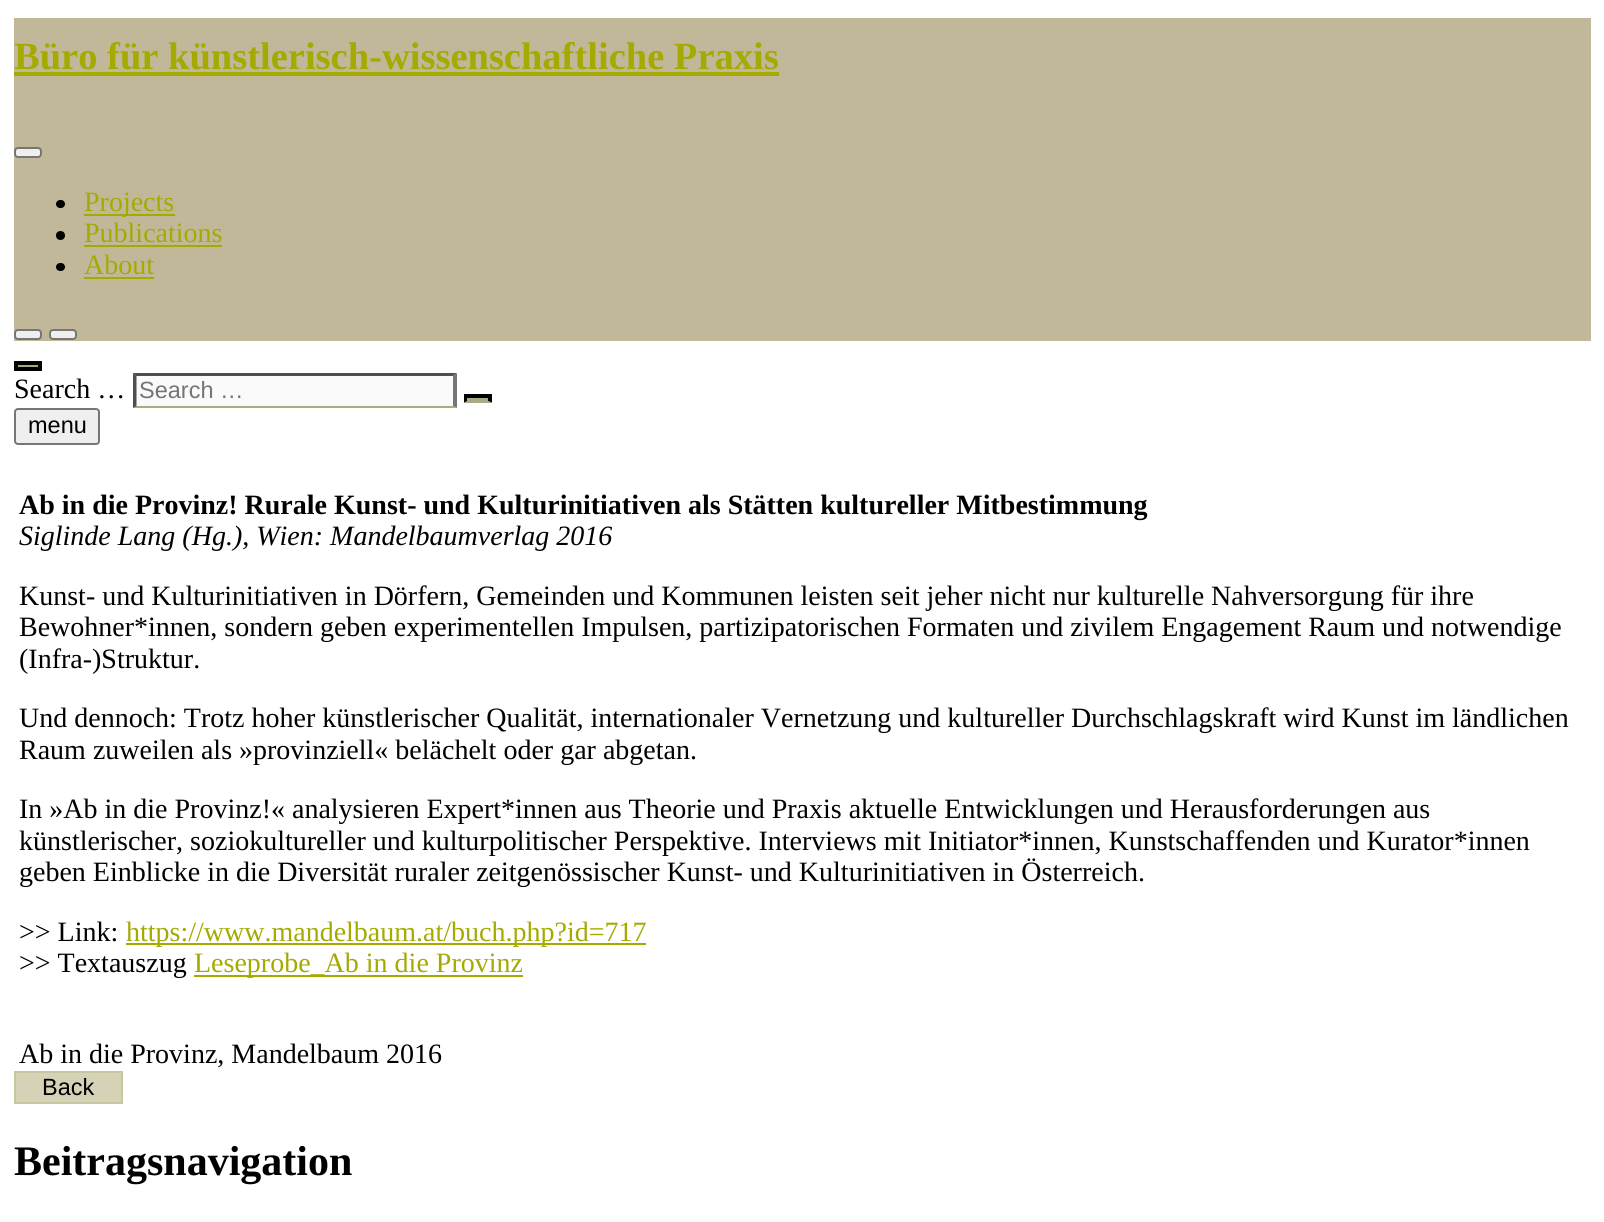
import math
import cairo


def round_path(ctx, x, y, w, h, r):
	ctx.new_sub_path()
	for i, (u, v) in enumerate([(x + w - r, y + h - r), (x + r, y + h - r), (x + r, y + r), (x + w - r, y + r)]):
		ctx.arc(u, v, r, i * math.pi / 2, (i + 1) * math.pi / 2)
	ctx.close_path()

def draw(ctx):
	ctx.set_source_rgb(1, 1, 1)
	ctx.paint()
	ctx.set_source_rgb(0.757, 0.722, 0.6)
	ctx.rectangle(14, 18, 1577, 323)
	ctx.fill()
	ctx.select_font_face('Liberation Serif', cairo.FONT_SLANT_NORMAL, cairo.FONT_WEIGHT_BOLD)
	ctx.set_font_size(38.5)
	ctx.set_source_rgb(0.647, 0.667, 0)
	ctx.move_to(14, 69)
	ctx.show_text('Büro für künstlerisch-wissenschaftliche Praxis')
	ctx.rectangle(14, 72, 765, 4)
	ctx.fill()
	ctx.set_source_rgb(0.937, 0.937, 0.937)
	round_path(ctx, 15, 148, 26, 9, 3)
	ctx.fill_preserve()
	ctx.set_source_rgb(0.463, 0.463, 0.463)
	ctx.stroke()
	ctx.set_source_rgb(0, 0, 0)
	round_path(ctx, 56, 200, 9, 8, 4)
	ctx.fill()
	ctx.set_source_rgb(0.647, 0.667, 0)
	ctx.rectangle(84, 214, 91, 2)
	ctx.fill()
	ctx.select_font_face('Liberation Serif')
	ctx.set_font_size(28)
	ctx.move_to(84, 211)
	ctx.show_text('Projects')
	ctx.set_source_rgb(0, 0, 0)
	ctx.new_path()
	ctx.arc(60.5, 235.5, 4.5, 0, 2 * math.pi)
	ctx.fill()
	ctx.set_source_rgb(0.647, 0.667, 0)
	ctx.move_to(84, 242)
	ctx.show_text('Publications')
	ctx.rectangle(84, 245, 138, 2)
	ctx.fill()
	ctx.set_source_rgb(0, 0, 0)
	round_path(ctx, 56, 263, 9, 8, 4)
	ctx.fill()
	ctx.set_source_rgb(0.647, 0.667, 0)
	ctx.move_to(84, 274)
	ctx.show_text('About')
	ctx.rectangle(84, 277, 70, 2)
	ctx.fill()
	ctx.set_source_rgb(0.937, 0.937, 0.937)
	round_path(ctx, 15, 330, 26, 9, 3)
	ctx.fill_preserve()
	ctx.set_source_rgb(0.463, 0.463, 0.463)
	ctx.stroke()
	ctx.set_source_rgb(0.937, 0.937, 0.937)
	round_path(ctx, 50, 330, 26, 9, 3)
	ctx.fill_preserve()
	ctx.set_source_rgb(0.463, 0.463, 0.463)
	ctx.stroke()
	ctx.set_source_rgb(0.667, 0.667, 0.522)
	ctx.rectangle(16, 363, 24, 6)
	ctx.fill_preserve()
	ctx.set_source_rgb(0, 0, 0)
	ctx.set_line_width(4)
	ctx.stroke()
	ctx.move_to(14, 398)
	ctx.show_text('Search …')
	ctx.set_source_rgb(0.98, 0.98, 0.98)
	ctx.rectangle(133, 373, 324, 35)
	ctx.fill()
	ctx.set_source_rgb(0.31, 0.31, 0.31)
	ctx.new_path()
	ctx.move_to(133, 373)
	ctx.line_to(457, 373)
	ctx.line_to(453, 376)
	ctx.line_to(136, 376)
	ctx.close_path()
	ctx.fill()
	ctx.set_source_rgb(0.463, 0.463, 0.463)
	ctx.new_path()
	ctx.move_to(457, 373)
	ctx.line_to(457, 408)
	ctx.line_to(453, 406)
	ctx.line_to(453, 376)
	ctx.close_path()
	ctx.fill()
	ctx.set_source_rgb(0.667, 0.667, 0.522)
	ctx.new_path()
	ctx.move_to(457, 408)
	ctx.line_to(133, 408)
	ctx.line_to(136, 406)
	ctx.line_to(453, 406)
	ctx.close_path()
	ctx.fill()
	ctx.set_source_rgb(0.31, 0.31, 0.31)
	ctx.new_path()
	ctx.move_to(133, 408)
	ctx.line_to(133, 373)
	ctx.line_to(136.5, 376)
	ctx.line_to(136.5, 406)
	ctx.close_path()
	ctx.fill()
	ctx.select_font_face('Liberation Sans')
	ctx.set_font_size(23.5)
	ctx.set_source_rgb(0.459, 0.459, 0.459)
	ctx.move_to(139, 398)
	ctx.show_text('Search …')
	ctx.set_source_rgb(0.667, 0.667, 0.522)
	ctx.rectangle(464, 398, 28, 5)
	ctx.fill()
	ctx.set_source_rgb(0, 0, 0)
	ctx.rectangle(464, 394, 28, 4)
	ctx.fill()
	ctx.new_path()
	ctx.move_to(492, 394)
	ctx.line_to(492, 402.5)
	ctx.line_to(488, 401)
	ctx.line_to(488, 397)
	ctx.close_path()
	ctx.fill()
	ctx.set_source_rgb(0.667, 0.667, 0.522)
	ctx.new_path()
	ctx.move_to(492, 402.5)
	ctx.line_to(464, 402.5)
	ctx.line_to(467, 401)
	ctx.line_to(488, 401)
	ctx.close_path()
	ctx.fill()
	ctx.set_source_rgb(0, 0, 0)
	ctx.new_path()
	ctx.move_to(464, 402.5)
	ctx.line_to(464, 394)
	ctx.line_to(467, 397)
	ctx.line_to(467, 401)
	ctx.close_path()
	ctx.fill()
	ctx.set_source_rgb(0.937, 0.937, 0.937)
	round_path(ctx, 15, 409, 84, 35, 3)
	ctx.fill_preserve()
	ctx.set_source_rgb(0.463, 0.463, 0.463)
	ctx.set_line_width(2)
	ctx.stroke()
	ctx.set_source_rgb(0, 0, 0)
	ctx.move_to(28, 433)
	ctx.show_text('menu')
	ctx.select_font_face('Liberation Serif', cairo.FONT_SLANT_NORMAL, cairo.FONT_WEIGHT_BOLD)
	ctx.set_font_size(28)
	ctx.move_to(19, 514)
	ctx.show_text('Ab in die Provinz! Rurale Kunst- und Kulturinitiativen als Stätten kultureller Mitbestimmung')
	ctx.select_font_face('Liberation Serif', cairo.FONT_SLANT_ITALIC)
	ctx.move_to(19, 545)
	ctx.show_text('Siglinde Lang (Hg.), Wien: Mandelbaumverlag 2016')
	ctx.select_font_face('Liberation Serif')
	for x, y, s in [
		(19, 605, 'Kunst- und Kulturinitiativen in Dörfern, Gemeinden und Kommunen leisten seit jeher nicht nur kulturelle Nahversorgung für ihre'),
		(19, 636, 'Bewohner*innen, sondern geben experimentellen Impulsen, partizipatorischen Formaten und zivilem Engagement Raum und notwendige'),
		(19, 668, '(Infra-)Struktur.'),
		(19, 727, 'Und dennoch: Trotz hoher künstlerischer Qualität, internationaler Vernetzung und kultureller Durchschlagskraft wird Kunst im ländlichen'),
		(19, 759, 'Raum zuweilen als »provinziell« belächelt oder gar abgetan.'),
		(19, 818, 'In »Ab in die Provinz!« analysieren Expert*innen aus Theorie und Praxis aktuelle Entwicklungen und Herausforderungen aus'),
		(19, 850, 'künstlerischer, soziokultureller und kulturpolitischer Perspektive. Interviews mit Initiator*innen, Kunstschaffenden und Kurator*innen'),
		(19, 881, 'geben Einblicke in die Diversität ruraler zeitgenössischer Kunst- und Kulturinitiativen in Österreich.'),
		(19, 941, '>> Link:'),
	]:
		ctx.move_to(x, y)
		ctx.show_text(s)
	ctx.set_source_rgb(0.647, 0.667, 0)
	ctx.rectangle(126, 943, 520, 2)
	ctx.fill()
	ctx.move_to(126, 941)
	ctx.show_text('https://www.mandelbaum.at/buch.php?id=717')
	ctx.set_source_rgb(0, 0, 0)
	ctx.move_to(19, 972)
	ctx.show_text('>> Textauszug')
	ctx.set_source_rgb(0.647, 0.667, 0)
	ctx.rectangle(194, 975, 329, 2)
	ctx.fill()
	ctx.move_to(194, 972)
	ctx.show_text('Leseprobe_Ab in die Provinz')
	ctx.set_source_rgb(0, 0, 0)
	ctx.move_to(19, 1063)
	ctx.show_text('Ab in die Provinz, Mandelbaum 2016')
	ctx.set_source_rgb(0.839, 0.824, 0.718)
	ctx.rectangle(15, 1072, 107, 31)
	ctx.fill_preserve()
	ctx.set_source_rgb(0.776, 0.776, 0.624)
	ctx.stroke()
	ctx.select_font_face('Liberation Sans')
	ctx.set_font_size(23.5)
	ctx.set_source_rgb(0, 0, 0)
	ctx.move_to(42, 1095)
	ctx.show_text('Back')
	ctx.select_font_face('Liberation Serif', cairo.FONT_SLANT_NORMAL, cairo.FONT_WEIGHT_BOLD)
	ctx.set_font_size(42)
	ctx.move_to(14, 1175)
	ctx.show_text('Beitragsnavigation')


surface = cairo.ImageSurface(cairo.FORMAT_RGB24, 1604, 1222)
ctx = cairo.Context(surface)
options = cairo.FontOptions()
options.set_hint_metrics(cairo.HINT_METRICS_OFF)
options.set_hint_style(cairo.HINT_STYLE_NONE)
ctx.set_font_options(options)
ctx.set_miter_limit(4)
draw(ctx)
surface.write_to_png('image.png')
